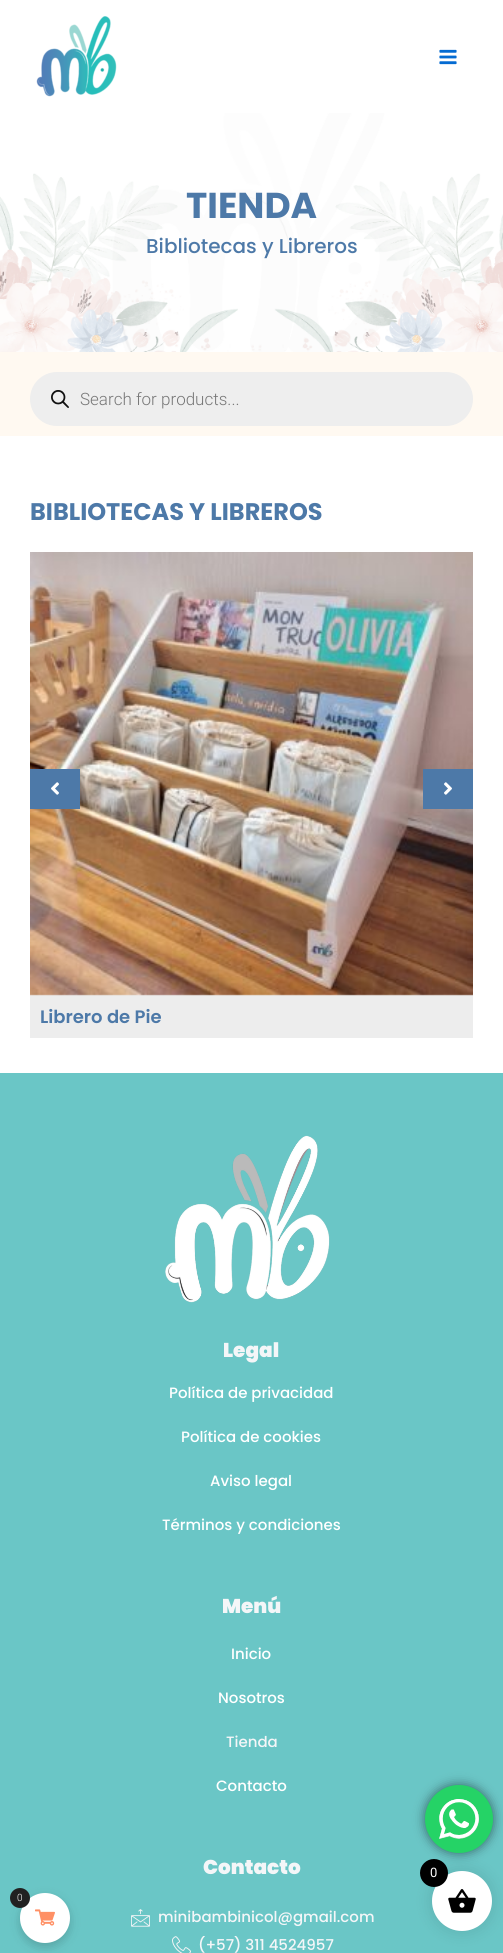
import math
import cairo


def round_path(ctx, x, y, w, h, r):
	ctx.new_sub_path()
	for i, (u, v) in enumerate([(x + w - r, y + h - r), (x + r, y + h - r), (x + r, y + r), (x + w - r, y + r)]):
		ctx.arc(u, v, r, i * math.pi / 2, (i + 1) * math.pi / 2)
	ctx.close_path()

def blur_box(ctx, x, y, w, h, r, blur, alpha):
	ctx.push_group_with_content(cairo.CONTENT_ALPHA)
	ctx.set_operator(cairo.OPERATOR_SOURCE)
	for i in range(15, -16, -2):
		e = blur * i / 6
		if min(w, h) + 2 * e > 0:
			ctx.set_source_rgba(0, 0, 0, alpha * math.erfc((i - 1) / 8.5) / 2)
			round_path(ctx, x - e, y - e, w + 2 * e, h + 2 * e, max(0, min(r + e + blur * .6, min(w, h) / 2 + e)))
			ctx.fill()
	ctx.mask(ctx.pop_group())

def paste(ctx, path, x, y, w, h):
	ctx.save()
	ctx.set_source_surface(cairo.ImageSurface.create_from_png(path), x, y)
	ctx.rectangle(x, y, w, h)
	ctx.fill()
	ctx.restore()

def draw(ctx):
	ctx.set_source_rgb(1, 1, 1)
	ctx.paint()
	paste(ctx, 'media/1.png', 36, 16, 81, 81)
	paste(ctx, 'media/2.png', 439, 49, 18, 16)
	paste(ctx, 'media/3.png', 0, 113, 503, 239)
	ctx.select_font_face('Poppins', cairo.FONT_SLANT_NORMAL, cairo.FONT_WEIGHT_BOLD)
	ctx.set_font_size(36)
	ctx.set_source_rgb(0.302, 0.475, 0.659)
	ctx.move_to(186, 218)
	ctx.show_text('TIENDA')
	ctx.select_font_face('Poppins Medium')
	ctx.set_font_size(20)
	ctx.move_to(146, 253)
	ctx.show_text('Bibliotecas y Libreros')
	ctx.set_source_rgb(1, 0.973, 0.945)
	ctx.rectangle(0, 352, 503, 84)
	ctx.fill()
	ctx.set_source_rgb(0.933, 0.933, 0.933)
	round_path(ctx, 30, 372, 443, 54, 27)
	ctx.fill()
	paste(ctx, 'media/4.png', 51, 390, 18, 18)
	ctx.select_font_face('Roboto Light')
	ctx.set_font_size(17)
	ctx.set_source_rgb(0.467, 0.467, 0.467)
	ctx.move_to(80, 405)
	ctx.show_text('Search for products...')
	ctx.select_font_face('Poppins', cairo.FONT_SLANT_NORMAL, cairo.FONT_WEIGHT_BOLD)
	ctx.set_font_size(24)
	ctx.set_source_rgb(0.302, 0.475, 0.659)
	ctx.move_to(30, 520)
	ctx.show_text('BIBLIOTECAS Y LIBREROS')
	ctx.set_source_rgb(0.929, 0.929, 0.929)
	ctx.rectangle(30, 994, 443, 44)
	ctx.fill()
	paste(ctx, 'media/7.png', 30, 552, 443, 444)
	ctx.set_source_rgb(0.302, 0.475, 0.659)
	ctx.rectangle(30, 769, 50, 40)
	ctx.fill()
	paste(ctx, 'media/5.png', 51, 782, 8, 13)
	ctx.rectangle(423, 769, 50, 40)
	ctx.fill()
	paste(ctx, 'media/6.png', 444, 782, 8, 13)
	ctx.select_font_face('Poppins SemiBold')
	ctx.set_font_size(18)
	ctx.move_to(40, 1023)
	ctx.show_text('Librero de Pie')
	ctx.set_source_rgb(0.416, 0.776, 0.776)
	ctx.rectangle(0, 1073, 503, 880)
	ctx.fill()
	paste(ctx, 'media/8.png', 165, 1135, 165, 168)
	ctx.select_font_face('Poppins Black')
	ctx.set_font_size(20)
	ctx.set_source_rgb(0.957, 0.961, 0.969)
	ctx.move_to(223, 1357)
	ctx.show_text('Legal')
	ctx.select_font_face('Poppins Medium')
	ctx.set_font_size(15)
	ctx.set_source_rgb(1, 1, 1)
	for x, y, s in [
		(169, 1398, 'Política de privacidad'),
		(181, 1442, 'Política de cookies'),
		(210, 1486, 'Aviso legal'),
		(162, 1530, 'Términos y condiciones'),
	]:
		ctx.move_to(x, y)
		ctx.show_text(s)
	ctx.select_font_face('Poppins Black')
	ctx.set_font_size(20)
	ctx.set_source_rgb(0.957, 0.961, 0.969)
	ctx.move_to(222, 1613)
	ctx.show_text('Menú')
	ctx.select_font_face('Poppins Medium')
	ctx.set_font_size(15)
	ctx.set_source_rgb(1, 1, 1)
	ctx.move_to(231, 1659)
	ctx.show_text('Inicio')
	ctx.move_to(218, 1703)
	ctx.show_text('Nosotros')
	ctx.set_source_rgb(0.957, 0.961, 0.969)
	ctx.move_to(226, 1747)
	ctx.show_text('Tienda')
	ctx.set_source_rgb(1, 1, 1)
	ctx.move_to(216, 1791)
	ctx.show_text('Contacto')
	ctx.select_font_face('Poppins Black')
	ctx.set_font_size(20)
	ctx.set_source_rgb(0.957, 0.961, 0.969)
	ctx.move_to(203, 1874)
	ctx.show_text('Contacto')
	paste(ctx, 'media/9.png', 131, 1909, 19, 18)
	ctx.select_font_face('Poppins Medium')
	ctx.set_font_size(15)
	ctx.move_to(158, 1922)
	ctx.show_text('minibambinicol@gmail.com')
	paste(ctx, 'media/10.png', 172, 1936, 19, 17)
	ctx.move_to(198, 1950)
	ctx.show_text('(+57) 311 4524957')
	ctx.set_source_rgb(0, 0, 0)
	blur_box(ctx, 430, 1869, 64, 64, 32, 7.5, 0.1)
	ctx.set_source_rgb(1, 1, 1)
	ctx.arc(462, 1901, 30, 0, 2 * math.pi)
	ctx.fill()
	ctx.set_source_rgb(0, 0, 0)
	ctx.arc(434, 1873, 14, 0, 2 * math.pi)
	ctx.fill()
	ctx.set_source_rgb(0, 0, 0)
	blur_box(ctx, 425, 1785, 68, 68, 34, 5.5, 0.5)
	ctx.set_source_rgb(0.145, 0.827, 0.4)
	ctx.arc(459, 1819, 34, 0, 2 * math.pi)
	ctx.fill()
	paste(ctx, 'media/11.png', 439, 1799, 40, 40)
	ctx.select_font_face('Roboto')
	ctx.set_font_size(13)
	ctx.set_source_rgb(1, 1, 1)
	ctx.move_to(430, 1877)
	ctx.show_text('0')
	paste(ctx, 'media/12.png', 448, 1889, 28, 24)
	ctx.set_source_rgb(0, 0, 0)
	blur_box(ctx, 20, 1897, 50, 50, 25, 5, 0.17)
	ctx.set_source_rgb(1, 1, 1)
	ctx.arc(45, 1918, 25, 0, 2 * math.pi)
	ctx.fill()
	ctx.set_source_rgb(0.129, 0.129, 0.129)
	ctx.arc(20, 1898, 10, 0, 2 * math.pi)
	ctx.fill()
	ctx.select_font_face('Roboto Light')
	ctx.set_font_size(10)
	ctx.set_source_rgb(1, 1, 1)
	ctx.move_to(17, 1901)
	ctx.show_text('0')
	paste(ctx, 'media/13.png', 35, 1909, 20, 17)


surface = cairo.ImageSurface(cairo.FORMAT_RGB24, 503, 1953)
ctx = cairo.Context(surface)
options = cairo.FontOptions()
options.set_hint_metrics(cairo.HINT_METRICS_OFF)
options.set_hint_style(cairo.HINT_STYLE_NONE)
ctx.set_font_options(options)
ctx.set_miter_limit(4)
draw(ctx)
surface.write_to_png('image.png')
